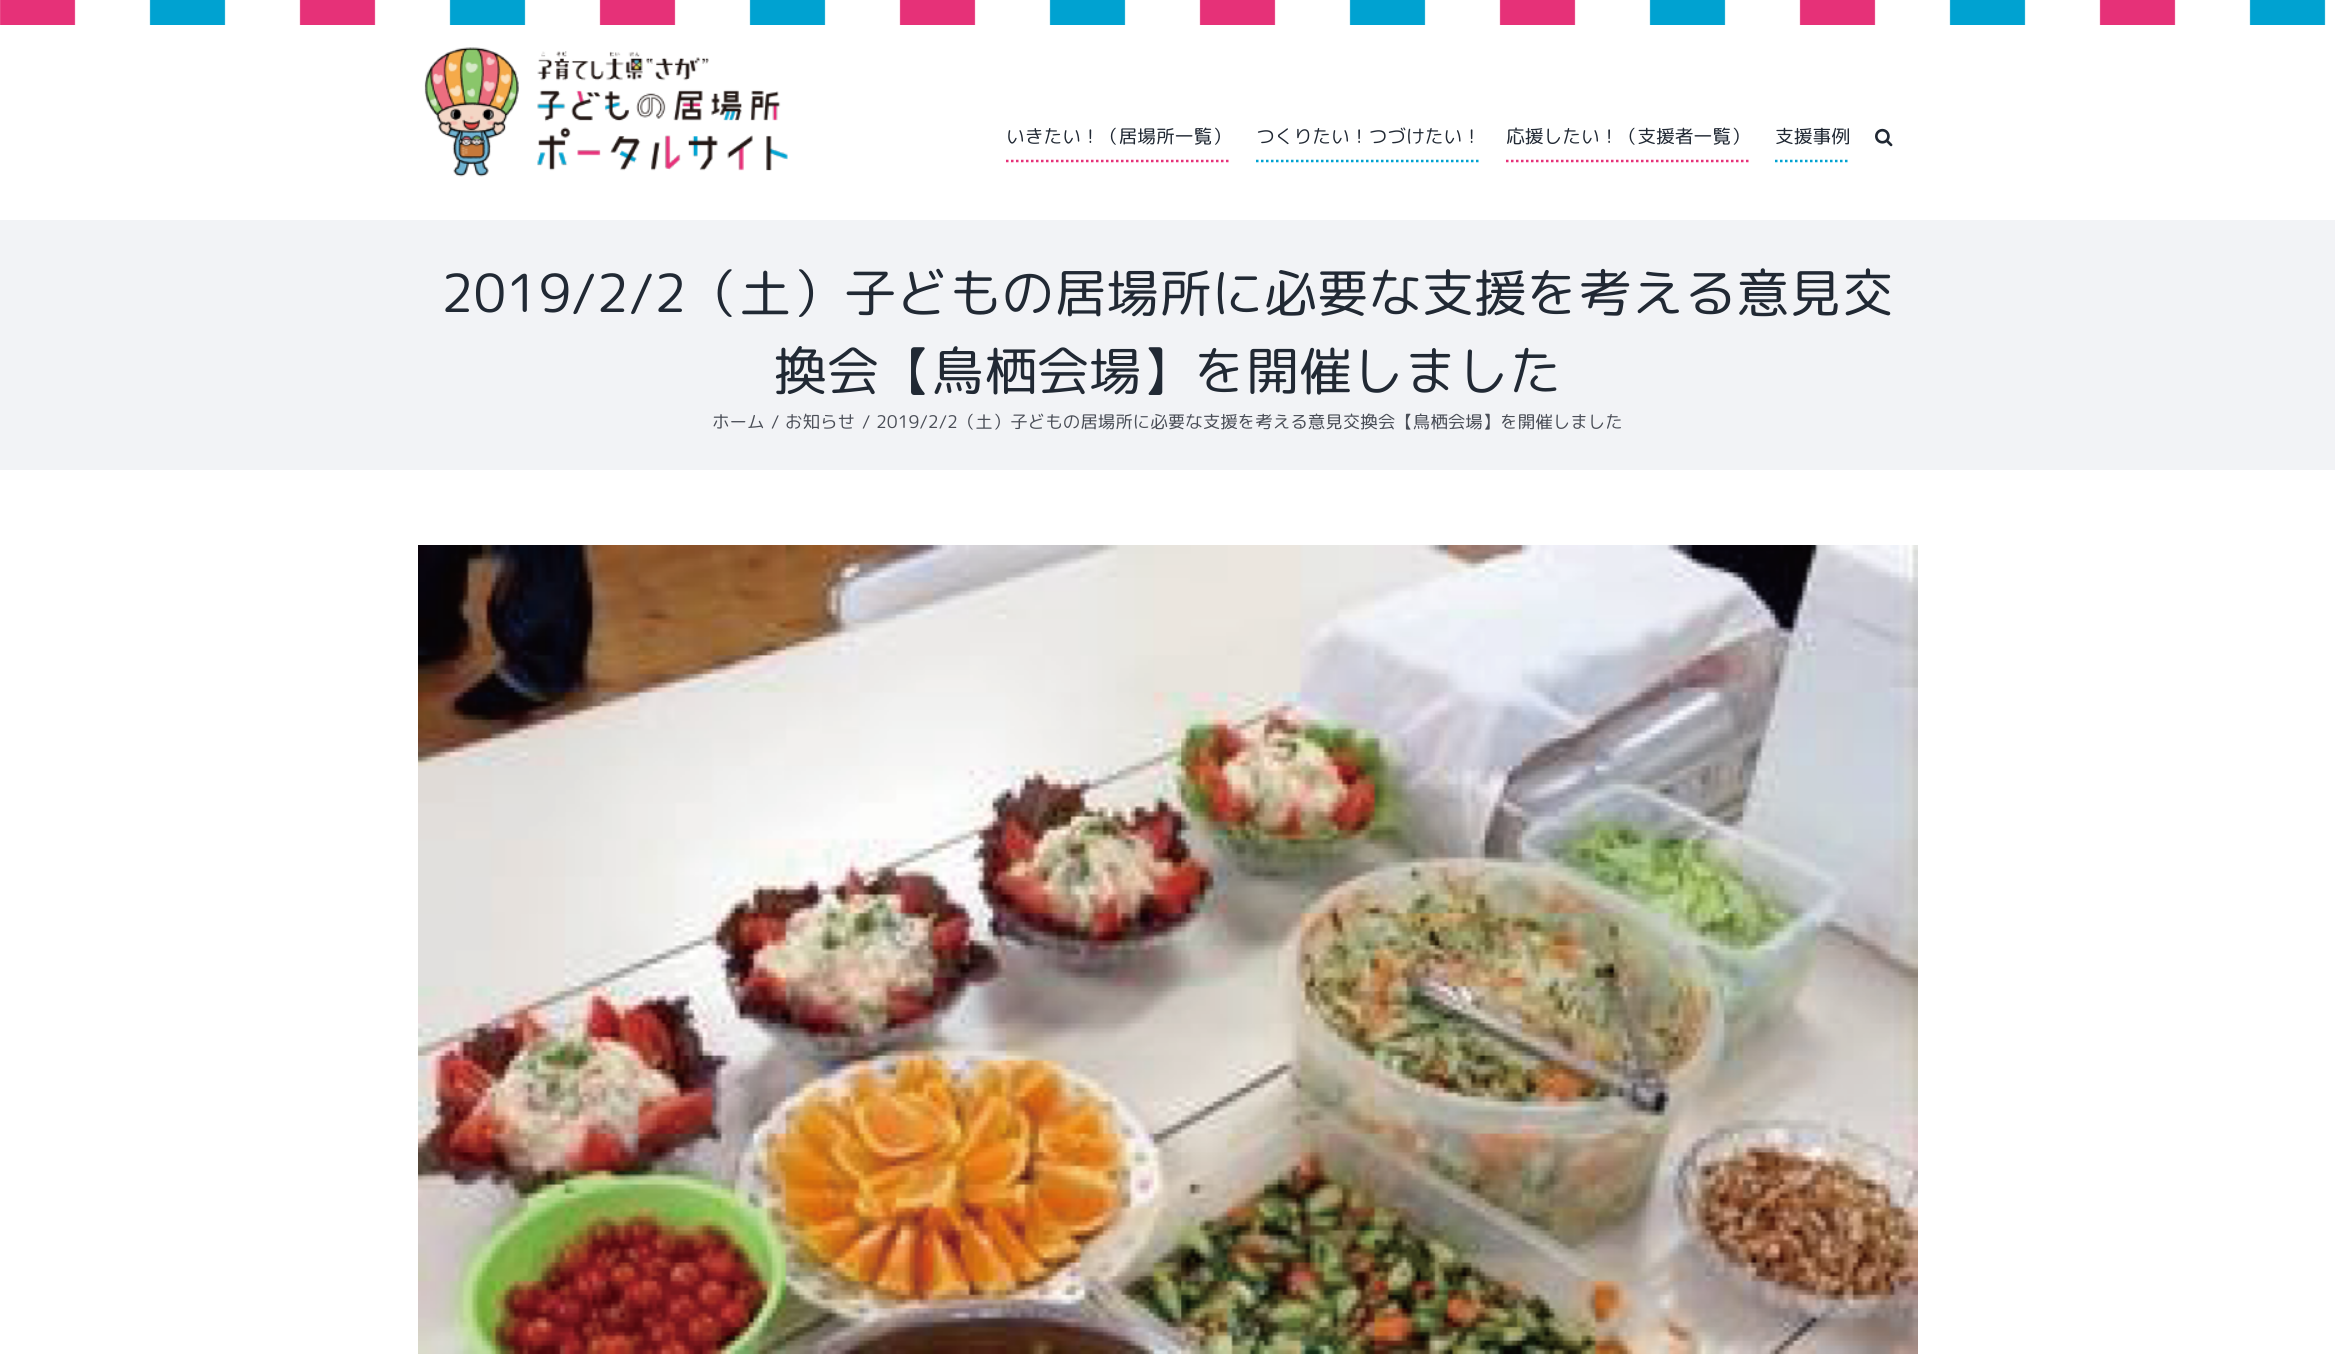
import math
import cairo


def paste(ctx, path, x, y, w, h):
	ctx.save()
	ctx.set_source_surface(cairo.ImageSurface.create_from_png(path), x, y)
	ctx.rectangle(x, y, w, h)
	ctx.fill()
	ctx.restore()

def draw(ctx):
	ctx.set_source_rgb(1, 1, 1)
	ctx.paint()
	paste(ctx, 'media/1.png', 0, 0, 2326, 25)
	paste(ctx, 'media/2.png', 424, 47, 364, 130)
	ctx.new_path()
	ctx.move_to(1006, 161)
	ctx.line_to(1231, 161)
	ctx.set_source_rgb(0.902, 0.192, 0.471)
	ctx.set_line_width(2.5)
	ctx.set_dash([2.5, 2.5])
	ctx.stroke()
	ctx.select_font_face('Rounded Mplus 1c')
	ctx.set_font_size(18.75)
	ctx.set_source_rgb(0.129, 0.161, 0.204)
	ctx.move_to(1006, 143)
	ctx.show_text('いきたい！（居場所一覧）')
	ctx.new_path()
	ctx.move_to(1256, 161)
	ctx.line_to(1481, 161)
	ctx.set_source_rgb(0, 0.635, 0.82)
	ctx.stroke()
	ctx.set_source_rgb(0.129, 0.161, 0.204)
	ctx.move_to(1256, 143)
	ctx.show_text('つくりたい！つづけたい！')
	ctx.new_path()
	ctx.move_to(1506, 161)
	ctx.line_to(1750, 161)
	ctx.set_source_rgb(0.902, 0.192, 0.471)
	ctx.stroke()
	ctx.set_source_rgb(0.129, 0.161, 0.204)
	ctx.move_to(1506, 143)
	ctx.show_text('応援したい！（支援者一覧）')
	ctx.new_path()
	ctx.move_to(1775, 161)
	ctx.line_to(1850, 161)
	ctx.set_source_rgb(0, 0.635, 0.82)
	ctx.stroke()
	ctx.set_source_rgb(0.129, 0.161, 0.204)
	ctx.move_to(1775, 143)
	ctx.show_text('支援事例')
	paste(ctx, 'media/3.png', 1875, 128, 18, 19)
	ctx.set_source_rgb(0.949, 0.953, 0.961)
	ctx.rectangle(0, 220, 2335, 250)
	ctx.fill()
	ctx.set_font_size(52.5)
	ctx.set_source_rgb(0.129, 0.161, 0.204)
	ctx.move_to(441, 312)
	ctx.show_text('2019/2/2（土）子どもの居場所に必要な支援を考える意見交')
	ctx.move_to(774, 390)
	ctx.show_text('換会【鳥栖会場】を開催しました')
	ctx.set_font_size(17.5)
	ctx.set_source_rgb(0.29, 0.306, 0.341)
	for x, y, s in [
		(712, 428, 'ホーム'),
		(771, 428, '/'),
		(785, 428, 'お知らせ'),
		(862, 428, '/'),
		(876, 428, '2019/2/2（土）子どもの居場所に必要な支援を考える意見交換会【鳥栖会場】を開催しました'),
	]:
		ctx.move_to(x, y)
		ctx.show_text(s)
	paste(ctx, 'media/4.png', 418, 545, 1500, 809)


surface = cairo.ImageSurface(cairo.FORMAT_RGB24, 2335, 1354)
ctx = cairo.Context(surface)
options = cairo.FontOptions()
options.set_hint_metrics(cairo.HINT_METRICS_OFF)
options.set_hint_style(cairo.HINT_STYLE_NONE)
ctx.set_font_options(options)
ctx.set_miter_limit(4)
draw(ctx)
surface.write_to_png('image.png')
